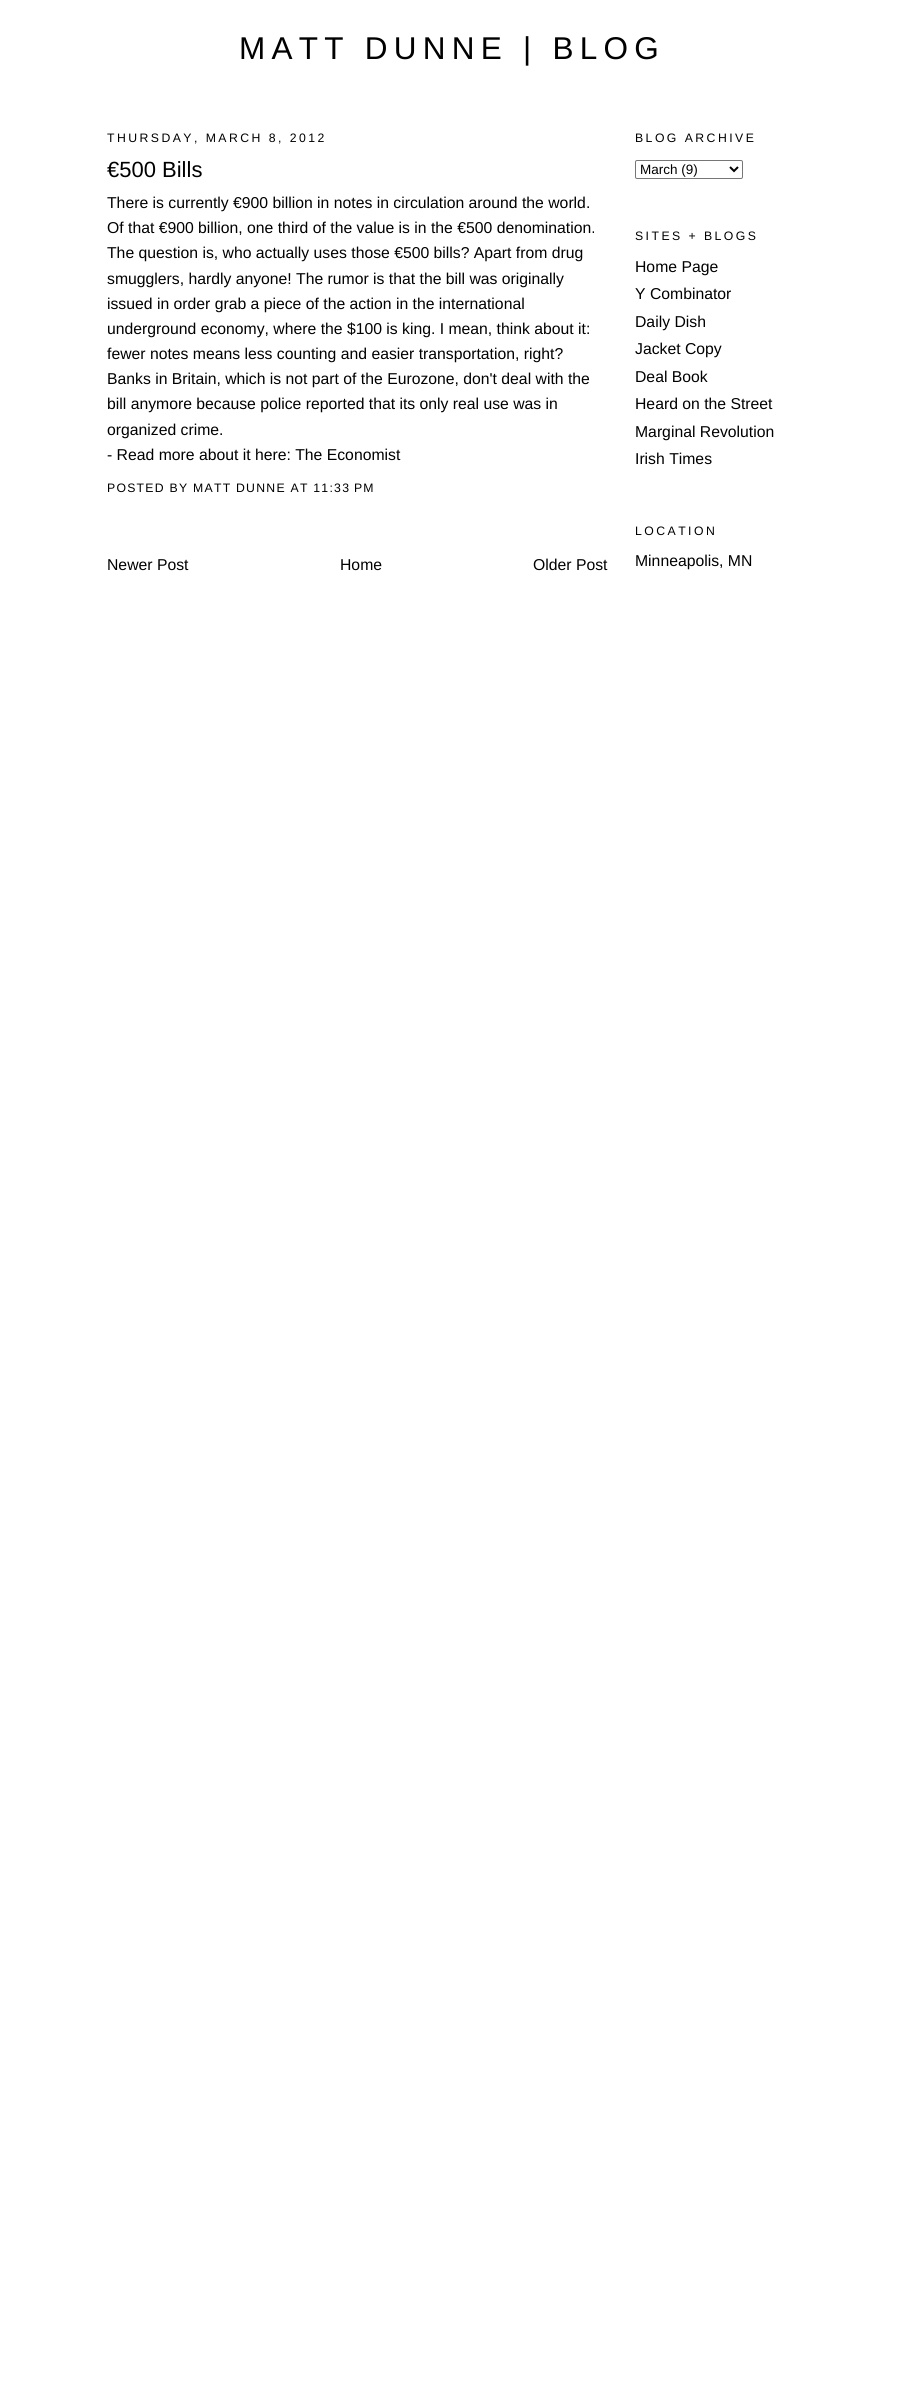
import math
import cairo


def write_spaced(ctx, x, y, s, letter, word):
	ctx.move_to(x, y)
	for ch in s:
		ctx.show_text(ch)
		ctx.rel_move_to(letter + word * (ch == ' '), 0)

def round_path(ctx, x, y, w, h, r):
	ctx.new_sub_path()
	for i, (u, v) in enumerate([(x + w - r, y + h - r), (x + r, y + h - r), (x + r, y + r), (x + w - r, y + r)]):
		ctx.arc(u, v, r, i * math.pi / 2, (i + 1) * math.pi / 2)
	ctx.close_path()

def draw(ctx):
	ctx.set_source_rgb(1, 1, 1)
	ctx.paint()
	ctx.select_font_face('Liberation Sans')
	ctx.set_font_size(31.5)
	ctx.set_source_rgb(0, 0, 0)
	write_spaced(ctx, 239, 59, 'MATT DUNNE | BLOG', 6.25, 0)
	ctx.set_font_size(12.25)
	write_spaced(ctx, 107, 142, 'THURSDAY, MARCH 8, 2012', 2.45, 0)
	ctx.set_font_size(22)
	ctx.move_to(107, 177)
	ctx.show_text('€500 Bills')
	ctx.set_font_size(15.75)
	for x, y, s in [
		(107, 208, 'There is currently €900 billion in notes in circulation around the world.'),
		(107, 233, 'Of that €900 billion, one third of the value is in the €500 denomination.'),
		(107, 258, 'The question is, who actually uses those €500 bills? Apart from drug'),
		(107, 284, 'smugglers, hardly anyone! The rumor is that the bill was originally'),
		(107, 309, 'issued in order grab a piece of the action in the international'),
		(107, 334, 'underground economy, where the $100 is king. I mean, think about it:'),
		(107, 359, 'fewer notes means less counting and easier transportation, right?'),
		(107, 384, 'Banks in Britain, which is not part of the Eurozone, don\'t deal with the'),
		(107, 409, 'bill anymore because police reported that its only real use was in'),
		(107, 435, 'organized crime.'),
		(107, 460, '- Read more about it here: The Economist'),
	]:
		ctx.move_to(x, y)
		ctx.show_text(s)
	ctx.set_font_size(12.25)
	write_spaced(ctx, 107, 492, 'POSTED BY MATT DUNNE AT 11:33 PM', 1.25, 0)
	ctx.set_font_size(15.75)
	for x, y, s in [
		(107, 570, 'Newer Post'),
		(340, 570, 'Home'),
		(533, 570, 'Older Post'),
	]:
		ctx.move_to(x, y)
		ctx.show_text(s)
	ctx.set_font_size(12.25)
	write_spaced(ctx, 635, 142, 'BLOG ARCHIVE', 2.45, 0)
	round_path(ctx, 635.5, 160.5, 107, 18, 1.5)
	ctx.set_source_rgb(0.463, 0.463, 0.463)
	ctx.set_line_width(1)
	ctx.stroke()
	ctx.new_path()
	ctx.move_to(730, 167)
	ctx.line_to(734, 171)
	ctx.line_to(738, 167)
	ctx.set_source_rgb(0, 0, 0)
	ctx.set_line_width(2)
	ctx.stroke()
	ctx.set_font_size(13.5)
	ctx.move_to(640, 174)
	ctx.show_text('March (9)')
	ctx.set_font_size(12.25)
	write_spaced(ctx, 635, 240, 'SITES + BLOGS', 2.45, 0)
	ctx.set_font_size(15.75)
	for x, y, s in [
		(635, 272, 'Home Page'),
		(635, 299, 'Y Combinator'),
		(635, 327, 'Daily Dish'),
		(635, 354, 'Jacket Copy'),
		(635, 382, 'Deal Book'),
		(635, 409, 'Heard on the Street'),
		(635, 437, 'Marginal Revolution'),
		(635, 464, 'Irish Times'),
	]:
		ctx.move_to(x, y)
		ctx.show_text(s)
	ctx.set_font_size(12.25)
	write_spaced(ctx, 635, 535, 'LOCATION', 2.45, 0)
	ctx.set_font_size(15.75)
	ctx.move_to(635, 566)
	ctx.show_text('Minneapolis, MN')


surface = cairo.ImageSurface(cairo.FORMAT_RGB24, 902, 2393)
ctx = cairo.Context(surface)
options = cairo.FontOptions()
options.set_hint_metrics(cairo.HINT_METRICS_OFF)
options.set_hint_style(cairo.HINT_STYLE_NONE)
ctx.set_font_options(options)
ctx.set_miter_limit(4)
draw(ctx)
surface.write_to_png('image.png')
